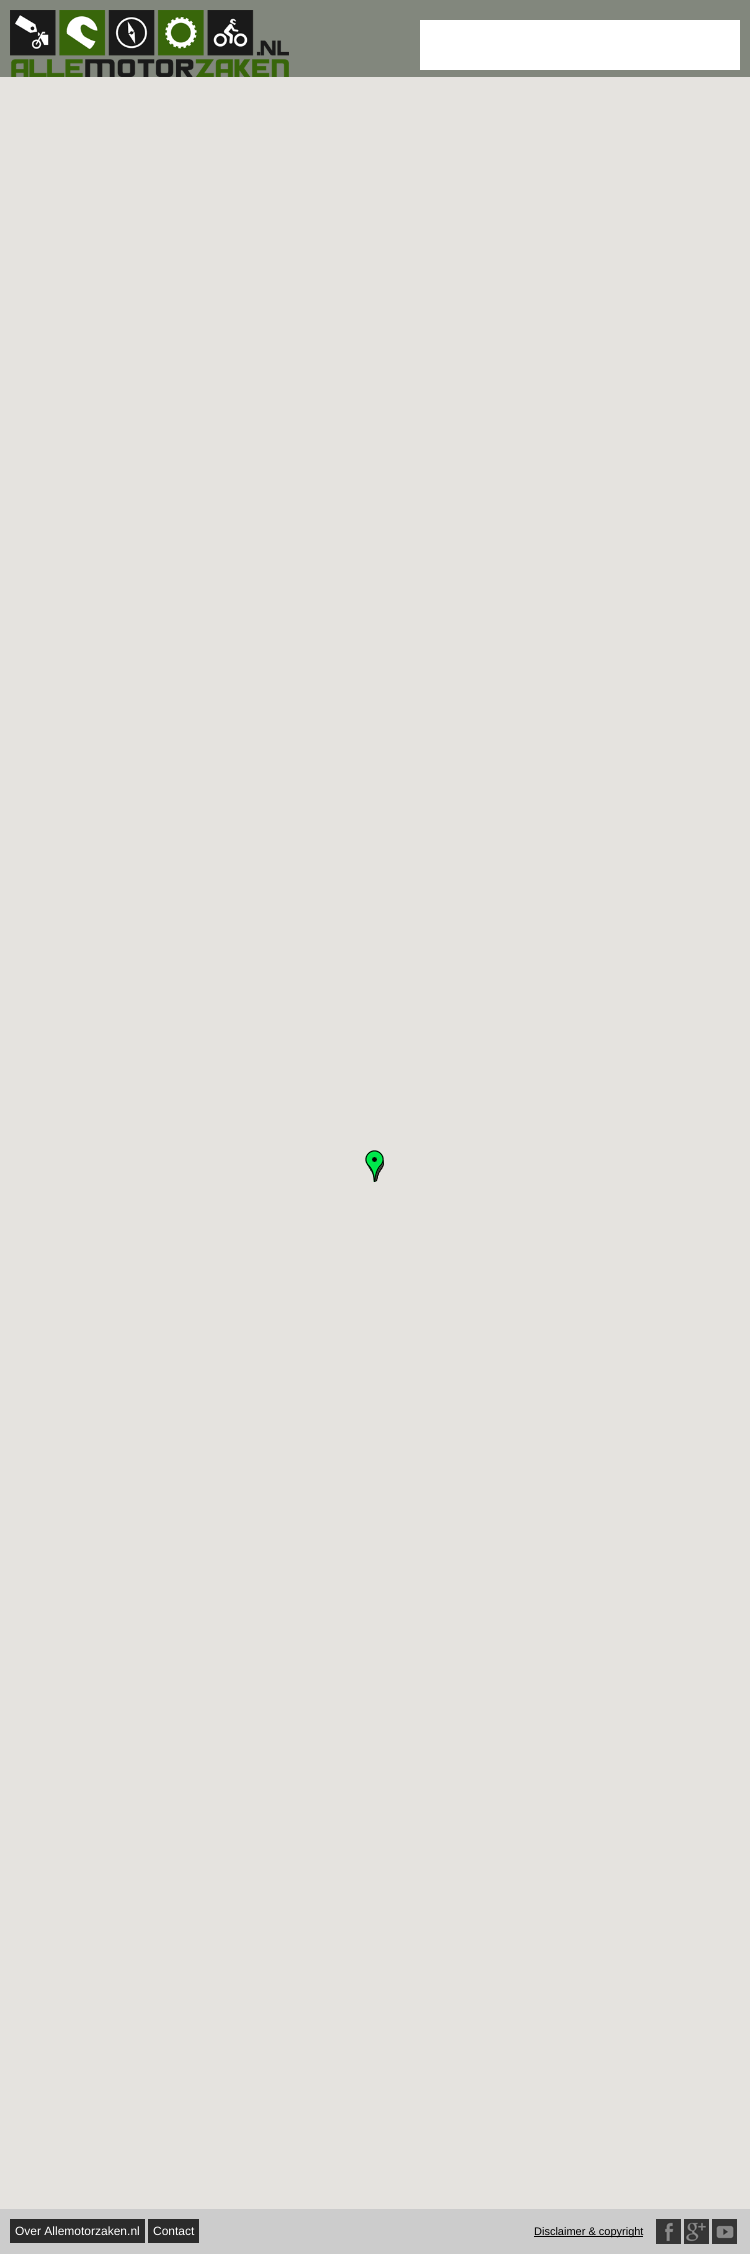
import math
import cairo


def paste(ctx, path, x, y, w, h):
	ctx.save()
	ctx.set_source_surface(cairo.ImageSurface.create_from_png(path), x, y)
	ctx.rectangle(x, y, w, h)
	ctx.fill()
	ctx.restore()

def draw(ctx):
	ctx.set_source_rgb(0.898, 0.89, 0.875)
	ctx.paint()
	ctx.set_source_rgb(0.51, 0.529, 0.49)
	ctx.rectangle(0, 0, 750, 77)
	ctx.fill()
	paste(ctx, 'media/1.png', 10, 10, 279, 67)
	ctx.set_source_rgb(1, 1, 1)
	ctx.rectangle(420, 20, 320, 50)
	ctx.fill()
	paste(ctx, 'media/3.png', 367, 1159, 17, 23)
	paste(ctx, 'media/2.png', 365, 1150, 19, 32)
	ctx.set_source_rgb(0.8, 0.8, 0.8)
	ctx.rectangle(0, 2209, 750, 45)
	ctx.fill()
	ctx.set_source_rgb(0.169, 0.169, 0.169)
	ctx.rectangle(10, 2219, 135, 24)
	ctx.fill()
	ctx.select_font_face('Liberation Sans')
	ctx.set_font_size(12)
	ctx.set_source_rgb(1, 1, 1)
	ctx.move_to(15, 2235)
	ctx.show_text('Over Allemotorzaken.nl')
	ctx.set_source_rgb(0.169, 0.169, 0.169)
	ctx.rectangle(148, 2219, 51, 24)
	ctx.fill()
	ctx.set_source_rgb(1, 1, 1)
	ctx.move_to(153, 2235)
	ctx.show_text('Contact')
	ctx.set_source_rgb(0, 0, 0)
	ctx.rectangle(534, 2236, 109, 1)
	ctx.fill()
	ctx.set_font_size(11)
	ctx.move_to(534, 2235)
	ctx.show_text('Disclaimer & copyright')
	paste(ctx, 'media/4.png', 656, 2219, 25, 25)
	paste(ctx, 'media/5.png', 684, 2219, 25, 25)
	paste(ctx, 'media/6.png', 712, 2219, 25, 25)


surface = cairo.ImageSurface(cairo.FORMAT_RGB24, 750, 2254)
ctx = cairo.Context(surface)
options = cairo.FontOptions()
options.set_hint_metrics(cairo.HINT_METRICS_OFF)
options.set_hint_style(cairo.HINT_STYLE_NONE)
ctx.set_font_options(options)
ctx.set_miter_limit(4)
draw(ctx)
surface.write_to_png('image.png')
